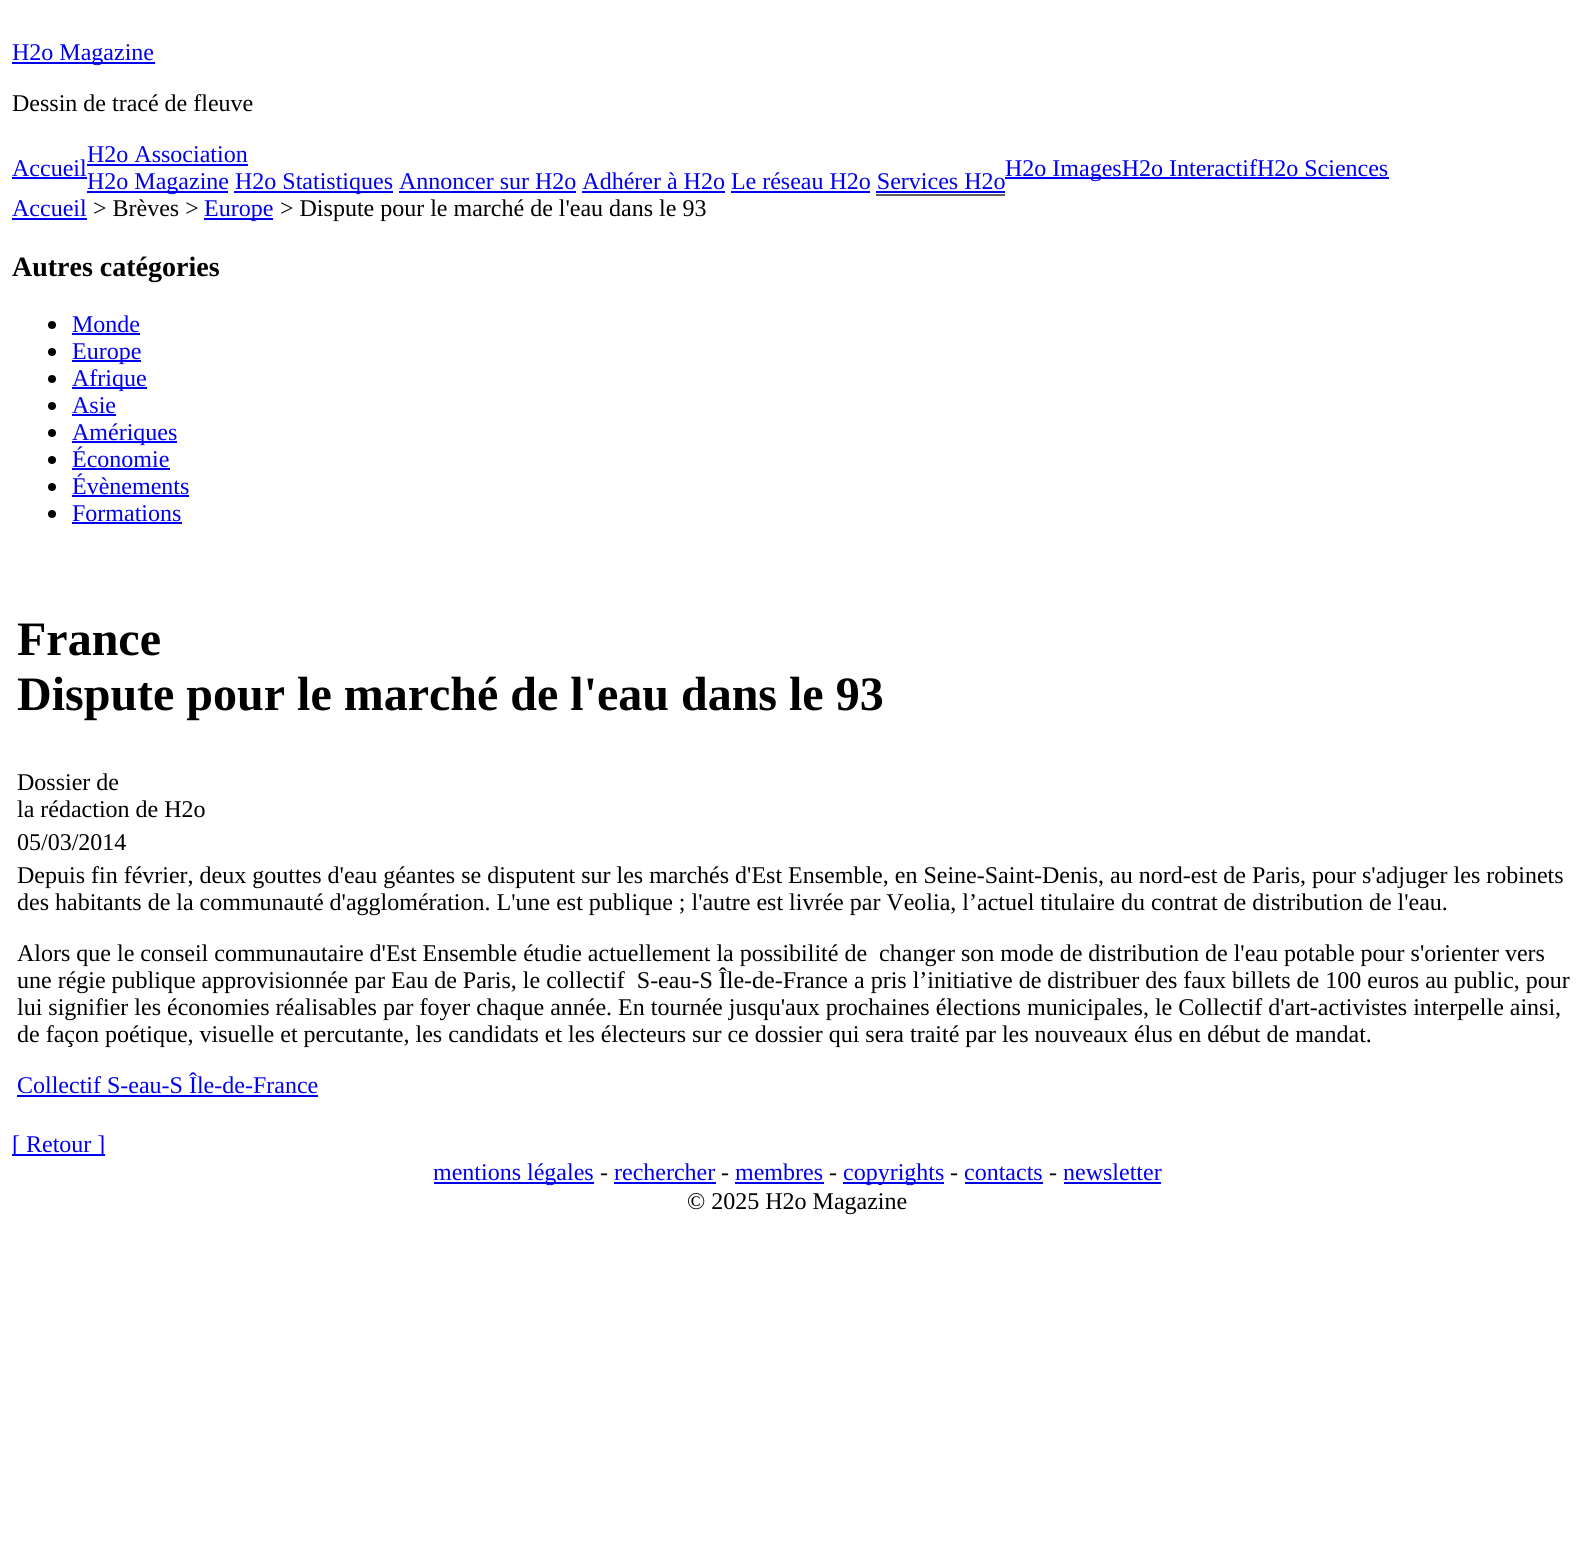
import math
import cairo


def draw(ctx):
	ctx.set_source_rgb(1, 1, 1)
	ctx.paint()
	ctx.set_source_rgb(0, 0, 0.933)
	ctx.rectangle(12, 62, 143, 2)
	ctx.fill()
	ctx.select_font_face('Liberation Serif')
	ctx.set_font_size(24)
	ctx.move_to(12, 60)
	ctx.show_text('H2o Magazine')
	ctx.set_source_rgb(0, 0, 0)
	ctx.move_to(12, 111)
	ctx.show_text('Dessin de tracé de fleuve')
	ctx.set_source_rgb(0, 0, 0.933)
	ctx.move_to(12, 176)
	ctx.show_text('Accueil')
	ctx.rectangle(12, 177, 75, 2)
	ctx.fill()
	ctx.move_to(87, 162)
	ctx.show_text('H2o Association')
	ctx.rectangle(87, 164, 161, 2)
	ctx.fill()
	ctx.rectangle(87, 191, 141, 2)
	ctx.fill()
	ctx.move_to(87, 189)
	ctx.show_text('H2o Magazine')
	ctx.rectangle(234, 191, 159, 2)
	ctx.fill()
	ctx.move_to(235, 189)
	ctx.show_text('H2o Statistiques Annoncer sur H2o Adhérer à H2o Le réseau H2o Services H2o')
	ctx.rectangle(399, 191, 177, 2)
	ctx.rectangle(582, 191, 143, 2)
	ctx.rectangle(731, 191, 139, 2)
	ctx.rectangle(876, 191, 129, 2)
	ctx.fill()
	ctx.set_source_rgb(0.376, 0.376, 0.376)
	ctx.rectangle(876, 194, 129, 2)
	ctx.fill()
	ctx.set_source_rgb(0, 0, 0.933)
	ctx.rectangle(1005, 177, 252, 2)
	ctx.fill()
	ctx.move_to(1005, 176)
	ctx.show_text('H2o ImagesH2o InteractifH2o Sciences')
	ctx.rectangle(1257, 177, 132, 2)
	ctx.fill()
	ctx.move_to(12, 216)
	ctx.show_text('Accueil')
	ctx.rectangle(12, 218, 75, 2)
	ctx.fill()
	ctx.set_source_rgb(0, 0, 0)
	ctx.move_to(93, 216)
	ctx.show_text('> Brèves >')
	ctx.set_source_rgb(0, 0, 0.933)
	ctx.rectangle(204, 218, 69, 2)
	ctx.fill()
	ctx.move_to(204, 216)
	ctx.show_text('Europe')
	ctx.set_source_rgb(0, 0, 0)
	ctx.move_to(280, 216)
	ctx.show_text('> Dispute pour le marché de l\'eau dans le 93')
	ctx.select_font_face('Liberation Serif', cairo.FONT_SLANT_NORMAL, cairo.FONT_WEIGHT_BOLD)
	ctx.set_font_size(28)
	ctx.move_to(12, 276)
	ctx.show_text('Autres catégories')
	ctx.new_path()
	ctx.arc(52, 325, 4, 0, 2 * math.pi)
	ctx.fill()
	ctx.select_font_face('Liberation Serif')
	ctx.set_font_size(24)
	ctx.set_source_rgb(0, 0, 0.933)
	ctx.move_to(72, 332)
	ctx.show_text('Monde')
	ctx.rectangle(72, 333, 68, 2)
	ctx.fill()
	ctx.set_source_rgb(0, 0, 0)
	ctx.arc(52, 352, 4, 0, 2 * math.pi)
	ctx.fill()
	ctx.set_source_rgb(0, 0, 0.933)
	ctx.rectangle(72, 360, 69, 2)
	ctx.fill()
	ctx.move_to(72, 359)
	ctx.show_text('Europe')
	ctx.set_source_rgb(0, 0, 0)
	ctx.new_path()
	ctx.arc(52, 379, 4, 0, 2 * math.pi)
	ctx.fill()
	ctx.set_source_rgb(0, 0, 0.933)
	ctx.rectangle(72, 387, 75, 2)
	ctx.fill()
	ctx.move_to(72, 386)
	ctx.show_text('Afrique')
	ctx.set_source_rgb(0, 0, 0)
	ctx.new_path()
	ctx.arc(52, 406, 4, 0, 2 * math.pi)
	ctx.fill()
	ctx.set_source_rgb(0, 0, 0.933)
	ctx.move_to(72, 413)
	ctx.show_text('Asie')
	ctx.rectangle(72, 414, 44, 2)
	ctx.fill()
	ctx.set_source_rgb(0, 0, 0)
	ctx.arc(52, 433, 4, 0, 2 * math.pi)
	ctx.fill()
	ctx.set_source_rgb(0, 0, 0.933)
	ctx.rectangle(72, 441, 105, 2)
	ctx.fill()
	ctx.move_to(72, 440)
	ctx.show_text('Amériques')
	ctx.set_source_rgb(0, 0, 0)
	ctx.new_path()
	ctx.arc(52, 460, 4, 0, 2 * math.pi)
	ctx.fill()
	ctx.set_source_rgb(0, 0, 0.933)
	ctx.move_to(72, 467)
	ctx.show_text('Économie')
	ctx.rectangle(72, 468, 98, 2)
	ctx.fill()
	ctx.set_source_rgb(0, 0, 0)
	ctx.arc(52, 487, 4, 0, 2 * math.pi)
	ctx.fill()
	ctx.set_source_rgb(0, 0, 0.933)
	ctx.move_to(72, 494)
	ctx.show_text('Évènements')
	ctx.rectangle(72, 495, 117, 2)
	ctx.fill()
	ctx.set_source_rgb(0, 0, 0)
	ctx.arc(52, 514, 4, 0, 2 * math.pi)
	ctx.fill()
	ctx.set_source_rgb(0, 0, 0.933)
	ctx.move_to(72, 521)
	ctx.show_text('Formations')
	ctx.rectangle(72, 522, 110, 2)
	ctx.fill()
	ctx.select_font_face('Liberation Serif', cairo.FONT_SLANT_NORMAL, cairo.FONT_WEIGHT_BOLD)
	ctx.set_font_size(48)
	ctx.set_source_rgb(0, 0, 0)
	ctx.move_to(17, 655)
	ctx.show_text('France')
	ctx.move_to(17, 710)
	ctx.show_text('Dispute pour le marché de l\'eau dans le 93')
	ctx.select_font_face('Liberation Serif')
	ctx.set_font_size(24)
	for x, y, s in [
		(17, 790, 'Dossier de'),
		(17, 817, 'la rédaction de H2o'),
		(17, 850, '05/03/2014'),
		(17, 883, 'Depuis fin février, deux gouttes d\'eau géantes se disputent sur les marchés d\'Est Ensemble, en Seine-Saint-Denis, au nord-est de Paris, pour s\'adjuger les robinets'),
		(17, 910, 'des habitants de la communauté d\'agglomération. L\'une est publique ; l\'autre est livrée par Veolia, l’actuel titulaire du contrat de distribution de l\'eau.'),
		(17, 961, 'Alors que le conseil communautaire d\'Est Ensemble étudie actuellement la possibilité de  changer son mode de distribution de l\'eau potable pour s\'orienter vers'),
		(17, 988, 'une régie publique approvisionnée par Eau de Paris, le collectif  S-eau-S Île-de-France a pris l’initiative de distribuer des faux billets de 100 euros au public, pour'),
		(17, 1015, 'lui signifier les économies réalisables par foyer chaque année. En tournée jusqu\'aux prochaines élections municipales, le Collectif d\'art-activistes interpelle ainsi,'),
		(17, 1042, 'de façon poétique, visuelle et percutante, les candidats et les électeurs sur ce dossier qui sera traité par les nouveaux élus en début de mandat.'),
	]:
		ctx.move_to(x, y)
		ctx.show_text(s)
	ctx.set_source_rgb(0, 0, 0.933)
	ctx.move_to(17, 1093)
	ctx.show_text('Collectif S-eau-S Île-de-France')
	ctx.rectangle(17, 1095, 301, 2)
	ctx.fill()
	ctx.rectangle(12, 1154, 93, 2)
	ctx.fill()
	ctx.move_to(12, 1152)
	ctx.show_text('[ Retour ]')
	ctx.rectangle(434, 1182, 160, 2)
	ctx.fill()
	ctx.move_to(433, 1180)
	ctx.show_text('mentions légales')
	ctx.set_source_rgb(0, 0, 0)
	ctx.move_to(600, 1180)
	ctx.show_text('-')
	ctx.set_source_rgb(0, 0, 0.933)
	ctx.move_to(614, 1180)
	ctx.show_text('rechercher')
	ctx.rectangle(614, 1182, 102, 2)
	ctx.fill()
	ctx.set_source_rgb(0, 0, 0)
	ctx.move_to(721, 1180)
	ctx.show_text('-')
	ctx.set_source_rgb(0, 0, 0.933)
	ctx.move_to(735, 1180)
	ctx.show_text('membres')
	ctx.rectangle(735, 1182, 89, 2)
	ctx.fill()
	ctx.set_source_rgb(0, 0, 0)
	ctx.move_to(829, 1180)
	ctx.show_text('-')
	ctx.set_source_rgb(0, 0, 0.933)
	ctx.rectangle(843, 1182, 101, 2)
	ctx.fill()
	ctx.move_to(843, 1180)
	ctx.show_text('copyrights')
	ctx.set_source_rgb(0, 0, 0)
	ctx.move_to(950, 1180)
	ctx.show_text('-')
	ctx.set_source_rgb(0, 0, 0.933)
	ctx.move_to(964, 1180)
	ctx.show_text('contacts')
	ctx.rectangle(965, 1182, 78, 2)
	ctx.fill()
	ctx.set_source_rgb(0, 0, 0)
	ctx.move_to(1049, 1180)
	ctx.show_text('-')
	ctx.set_source_rgb(0, 0, 0.933)
	ctx.move_to(1063, 1180)
	ctx.show_text('newsletter')
	ctx.rectangle(1064, 1182, 97, 2)
	ctx.fill()
	ctx.set_source_rgb(0, 0, 0)
	ctx.move_to(687, 1209)
	ctx.show_text('© 2025 H2o Magazine')


surface = cairo.ImageSurface(cairo.FORMAT_RGB24, 1594, 1547)
ctx = cairo.Context(surface)
options = cairo.FontOptions()
options.set_hint_metrics(cairo.HINT_METRICS_OFF)
options.set_hint_style(cairo.HINT_STYLE_NONE)
ctx.set_font_options(options)
ctx.set_miter_limit(4)
draw(ctx)
surface.write_to_png('image.png')
